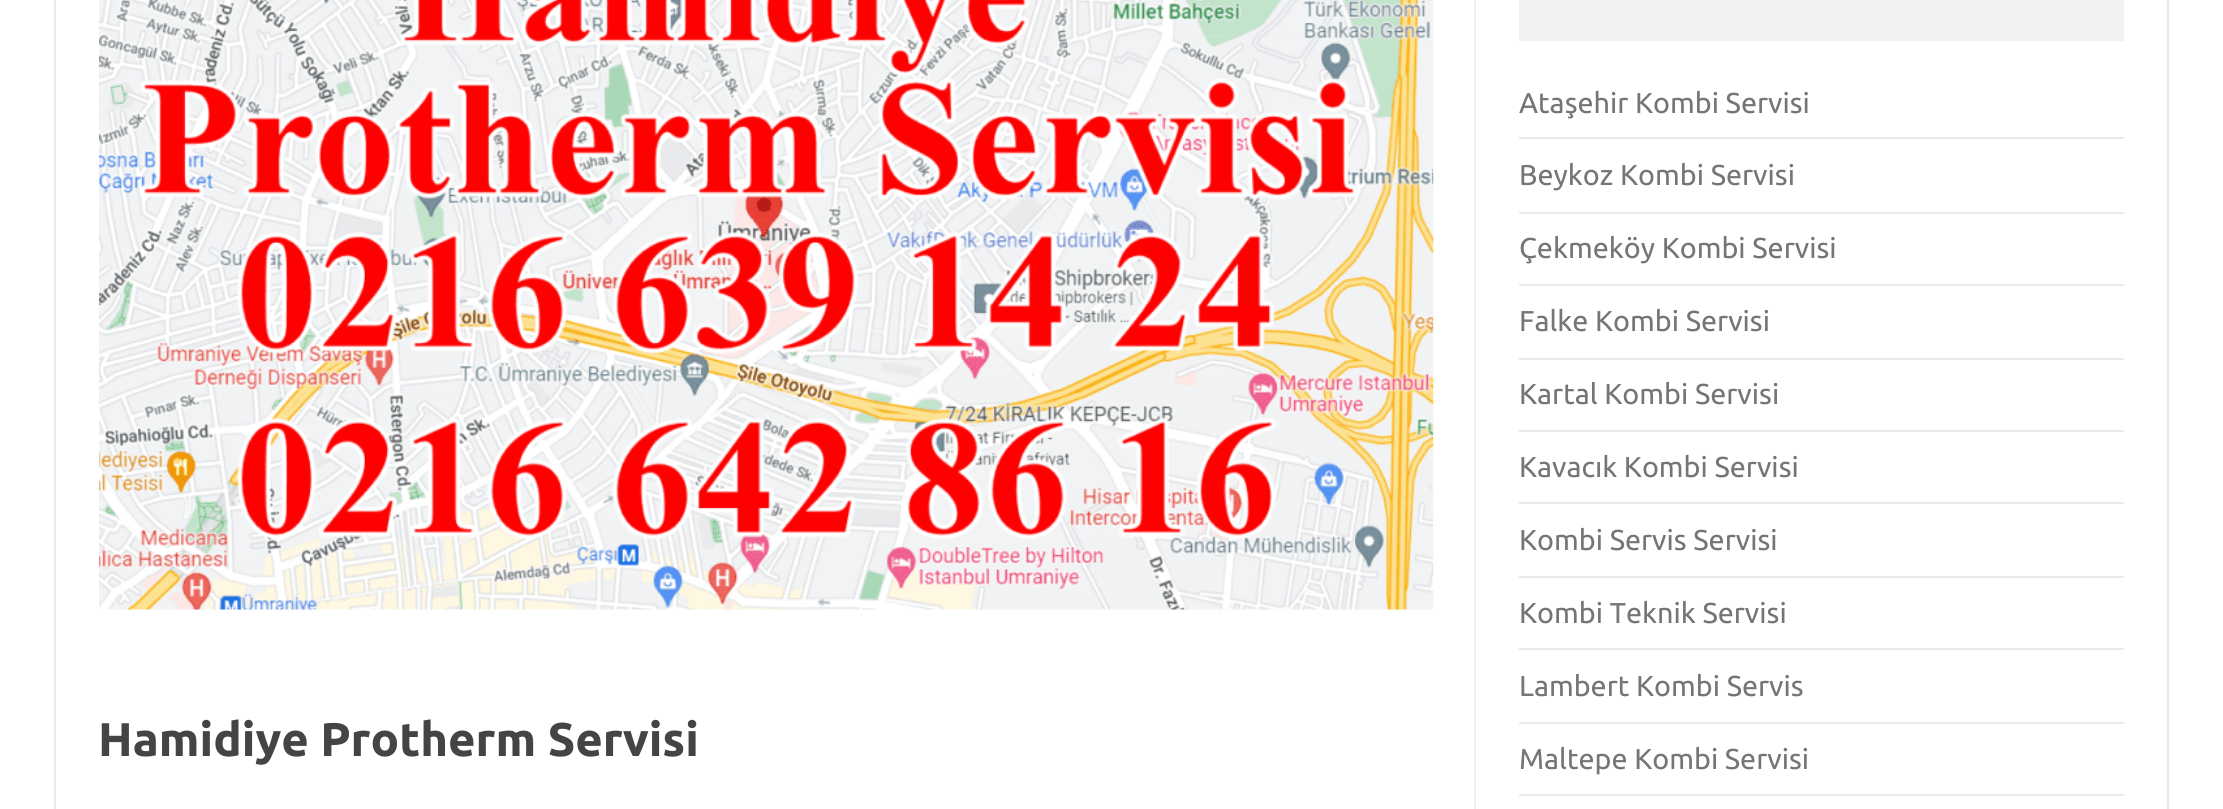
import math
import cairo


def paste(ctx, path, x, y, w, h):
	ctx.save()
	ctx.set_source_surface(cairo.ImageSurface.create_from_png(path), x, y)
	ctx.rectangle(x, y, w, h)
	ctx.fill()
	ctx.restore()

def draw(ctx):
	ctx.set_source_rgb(1, 1, 1)
	ctx.paint()
	ctx.rectangle(55, -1, 2113, 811)
	ctx.set_source_rgb(0.914, 0.914, 0.914)
	ctx.stroke()
	ctx.set_source_rgb(0.945, 0.945, 0.945)
	ctx.rectangle(1474, 0, 2, 809)
	ctx.fill()
	paste(ctx, 'media/1.png', 99, 0, 1335, 610)
	ctx.select_font_face('Ubuntu', cairo.FONT_SLANT_NORMAL, cairo.FONT_WEIGHT_BOLD)
	ctx.set_font_size(47.25)
	ctx.set_source_rgb(0.267, 0.267, 0.267)
	ctx.move_to(98, 756)
	ctx.show_text('Hamidiye Protherm Servisi')
	ctx.set_source_rgb(0.949, 0.949, 0.949)
	ctx.rectangle(1519, 0, 605, 41)
	ctx.fill()
	ctx.set_source_rgb(0.914, 0.914, 0.914)
	ctx.rectangle(1519, 137, 605, 2)
	ctx.fill()
	ctx.select_font_face('Ubuntu')
	ctx.set_font_size(28.75)
	ctx.set_source_rgb(0.459, 0.459, 0.459)
	ctx.move_to(1519, 113)
	ctx.show_text('Ataşehir Kombi Servisi')
	ctx.set_source_rgb(0.914, 0.914, 0.914)
	ctx.rectangle(1519, 212, 605, 2)
	ctx.fill()
	ctx.set_source_rgb(0.459, 0.459, 0.459)
	ctx.move_to(1519, 185)
	ctx.show_text('Beykoz Kombi Servisi')
	ctx.set_source_rgb(0.914, 0.914, 0.914)
	ctx.rectangle(1519, 284, 605, 2)
	ctx.fill()
	ctx.set_source_rgb(0.459, 0.459, 0.459)
	ctx.move_to(1519, 258)
	ctx.show_text('Çekmeköy Kombi Servisi')
	ctx.set_source_rgb(0.914, 0.914, 0.914)
	ctx.rectangle(1519, 358, 605, 2)
	ctx.fill()
	ctx.set_source_rgb(0.459, 0.459, 0.459)
	ctx.move_to(1519, 331)
	ctx.show_text('Falke Kombi Servisi')
	ctx.set_source_rgb(0.914, 0.914, 0.914)
	ctx.rectangle(1519, 430, 605, 2)
	ctx.fill()
	ctx.set_source_rgb(0.459, 0.459, 0.459)
	ctx.move_to(1519, 404)
	ctx.show_text('Kartal Kombi Servisi')
	ctx.set_source_rgb(0.914, 0.914, 0.914)
	ctx.rectangle(1519, 502, 605, 2)
	ctx.fill()
	ctx.set_source_rgb(0.459, 0.459, 0.459)
	ctx.move_to(1519, 477)
	ctx.show_text('Kavacık Kombi Servisi')
	ctx.set_source_rgb(0.914, 0.914, 0.914)
	ctx.rectangle(1519, 576, 605, 2)
	ctx.fill()
	ctx.set_source_rgb(0.459, 0.459, 0.459)
	ctx.move_to(1519, 550)
	ctx.show_text('Kombi Servis Servisi')
	ctx.set_source_rgb(0.914, 0.914, 0.914)
	ctx.rectangle(1519, 648, 605, 2)
	ctx.fill()
	ctx.set_source_rgb(0.459, 0.459, 0.459)
	ctx.move_to(1519, 623)
	ctx.show_text('Kombi Teknik Servisi')
	ctx.set_source_rgb(0.914, 0.914, 0.914)
	ctx.rectangle(1519, 722, 605, 2)
	ctx.fill()
	ctx.set_source_rgb(0.459, 0.459, 0.459)
	ctx.move_to(1519, 696)
	ctx.show_text('Lambert Kombi Servis')
	ctx.set_source_rgb(0.914, 0.914, 0.914)
	ctx.rectangle(1519, 794, 605, 2)
	ctx.fill()
	ctx.set_source_rgb(0.459, 0.459, 0.459)
	ctx.move_to(1519, 769)
	ctx.show_text('Maltepe Kombi Servisi')


surface = cairo.ImageSurface(cairo.FORMAT_RGB24, 2223, 809)
ctx = cairo.Context(surface)
options = cairo.FontOptions()
options.set_hint_metrics(cairo.HINT_METRICS_OFF)
options.set_hint_style(cairo.HINT_STYLE_NONE)
ctx.set_font_options(options)
ctx.set_miter_limit(4)
draw(ctx)
surface.write_to_png('image.png')
